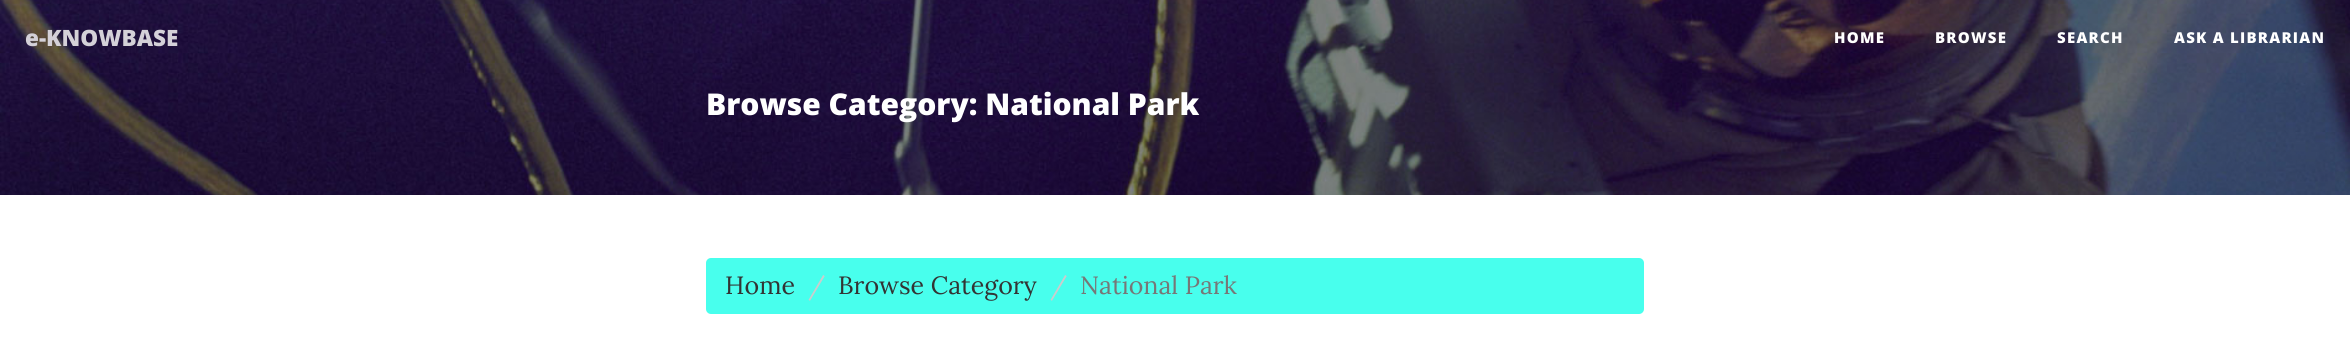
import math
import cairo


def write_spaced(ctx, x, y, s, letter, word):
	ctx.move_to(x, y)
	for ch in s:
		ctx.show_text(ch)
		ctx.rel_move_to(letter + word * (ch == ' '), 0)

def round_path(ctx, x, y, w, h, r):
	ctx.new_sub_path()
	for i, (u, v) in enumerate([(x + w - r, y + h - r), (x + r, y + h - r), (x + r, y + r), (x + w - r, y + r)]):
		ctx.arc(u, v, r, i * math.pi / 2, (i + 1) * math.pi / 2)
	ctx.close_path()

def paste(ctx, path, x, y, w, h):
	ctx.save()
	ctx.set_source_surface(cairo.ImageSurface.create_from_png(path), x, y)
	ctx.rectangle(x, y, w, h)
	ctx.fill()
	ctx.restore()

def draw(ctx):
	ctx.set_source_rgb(1, 1, 1)
	ctx.paint()
	paste(ctx, 'media/1.png', 0, 0, 2350, 195)
	ctx.select_font_face('Open Sans ExtraBold')
	ctx.set_font_size(22.5)
	ctx.set_source_rgb(0.831, 0.82, 0.847)
	ctx.move_to(25, 46)
	ctx.show_text('e-KNOWBASE')
	ctx.set_font_size(15)
	ctx.set_source_rgb(1, 1, 1)
	for x, y, s in [
		(1834, 43, 'HOME'),
		(1935, 43, 'BROWSE'),
		(2057, 43, 'SEARCH'),
		(2174, 43, 'ASK A LIBRARIAN'),
	]:
		write_spaced(ctx, x, y, s, 1.25, 0)
	ctx.set_font_size(30)
	ctx.move_to(706, 115)
	ctx.show_text('Browse Category: National Park')
	ctx.set_source_rgb(0.282, 1, 0.929)
	round_path(ctx, 706, 258, 938, 56, 5)
	ctx.fill()
	ctx.select_font_face('Lora')
	ctx.set_font_size(25)
	ctx.set_source_rgb(0.2, 0.2, 0.2)
	ctx.move_to(725, 294)
	ctx.show_text('Home')
	ctx.set_source_rgb(0.8, 0.8, 0.8)
	ctx.move_to(808, 294)
	ctx.show_text('/')
	ctx.set_source_rgb(0.2, 0.2, 0.2)
	ctx.move_to(838, 294)
	ctx.show_text('Browse Category')
	ctx.set_source_rgb(0.8, 0.8, 0.8)
	ctx.move_to(1050, 294)
	ctx.show_text('/')
	ctx.set_source_rgb(0.467, 0.467, 0.467)
	ctx.move_to(1080, 294)
	ctx.show_text('National Park')


surface = cairo.ImageSurface(cairo.FORMAT_RGB24, 2350, 364)
ctx = cairo.Context(surface)
options = cairo.FontOptions()
options.set_hint_metrics(cairo.HINT_METRICS_OFF)
options.set_hint_style(cairo.HINT_STYLE_NONE)
ctx.set_font_options(options)
ctx.set_miter_limit(4)
draw(ctx)
surface.write_to_png('image.png')
